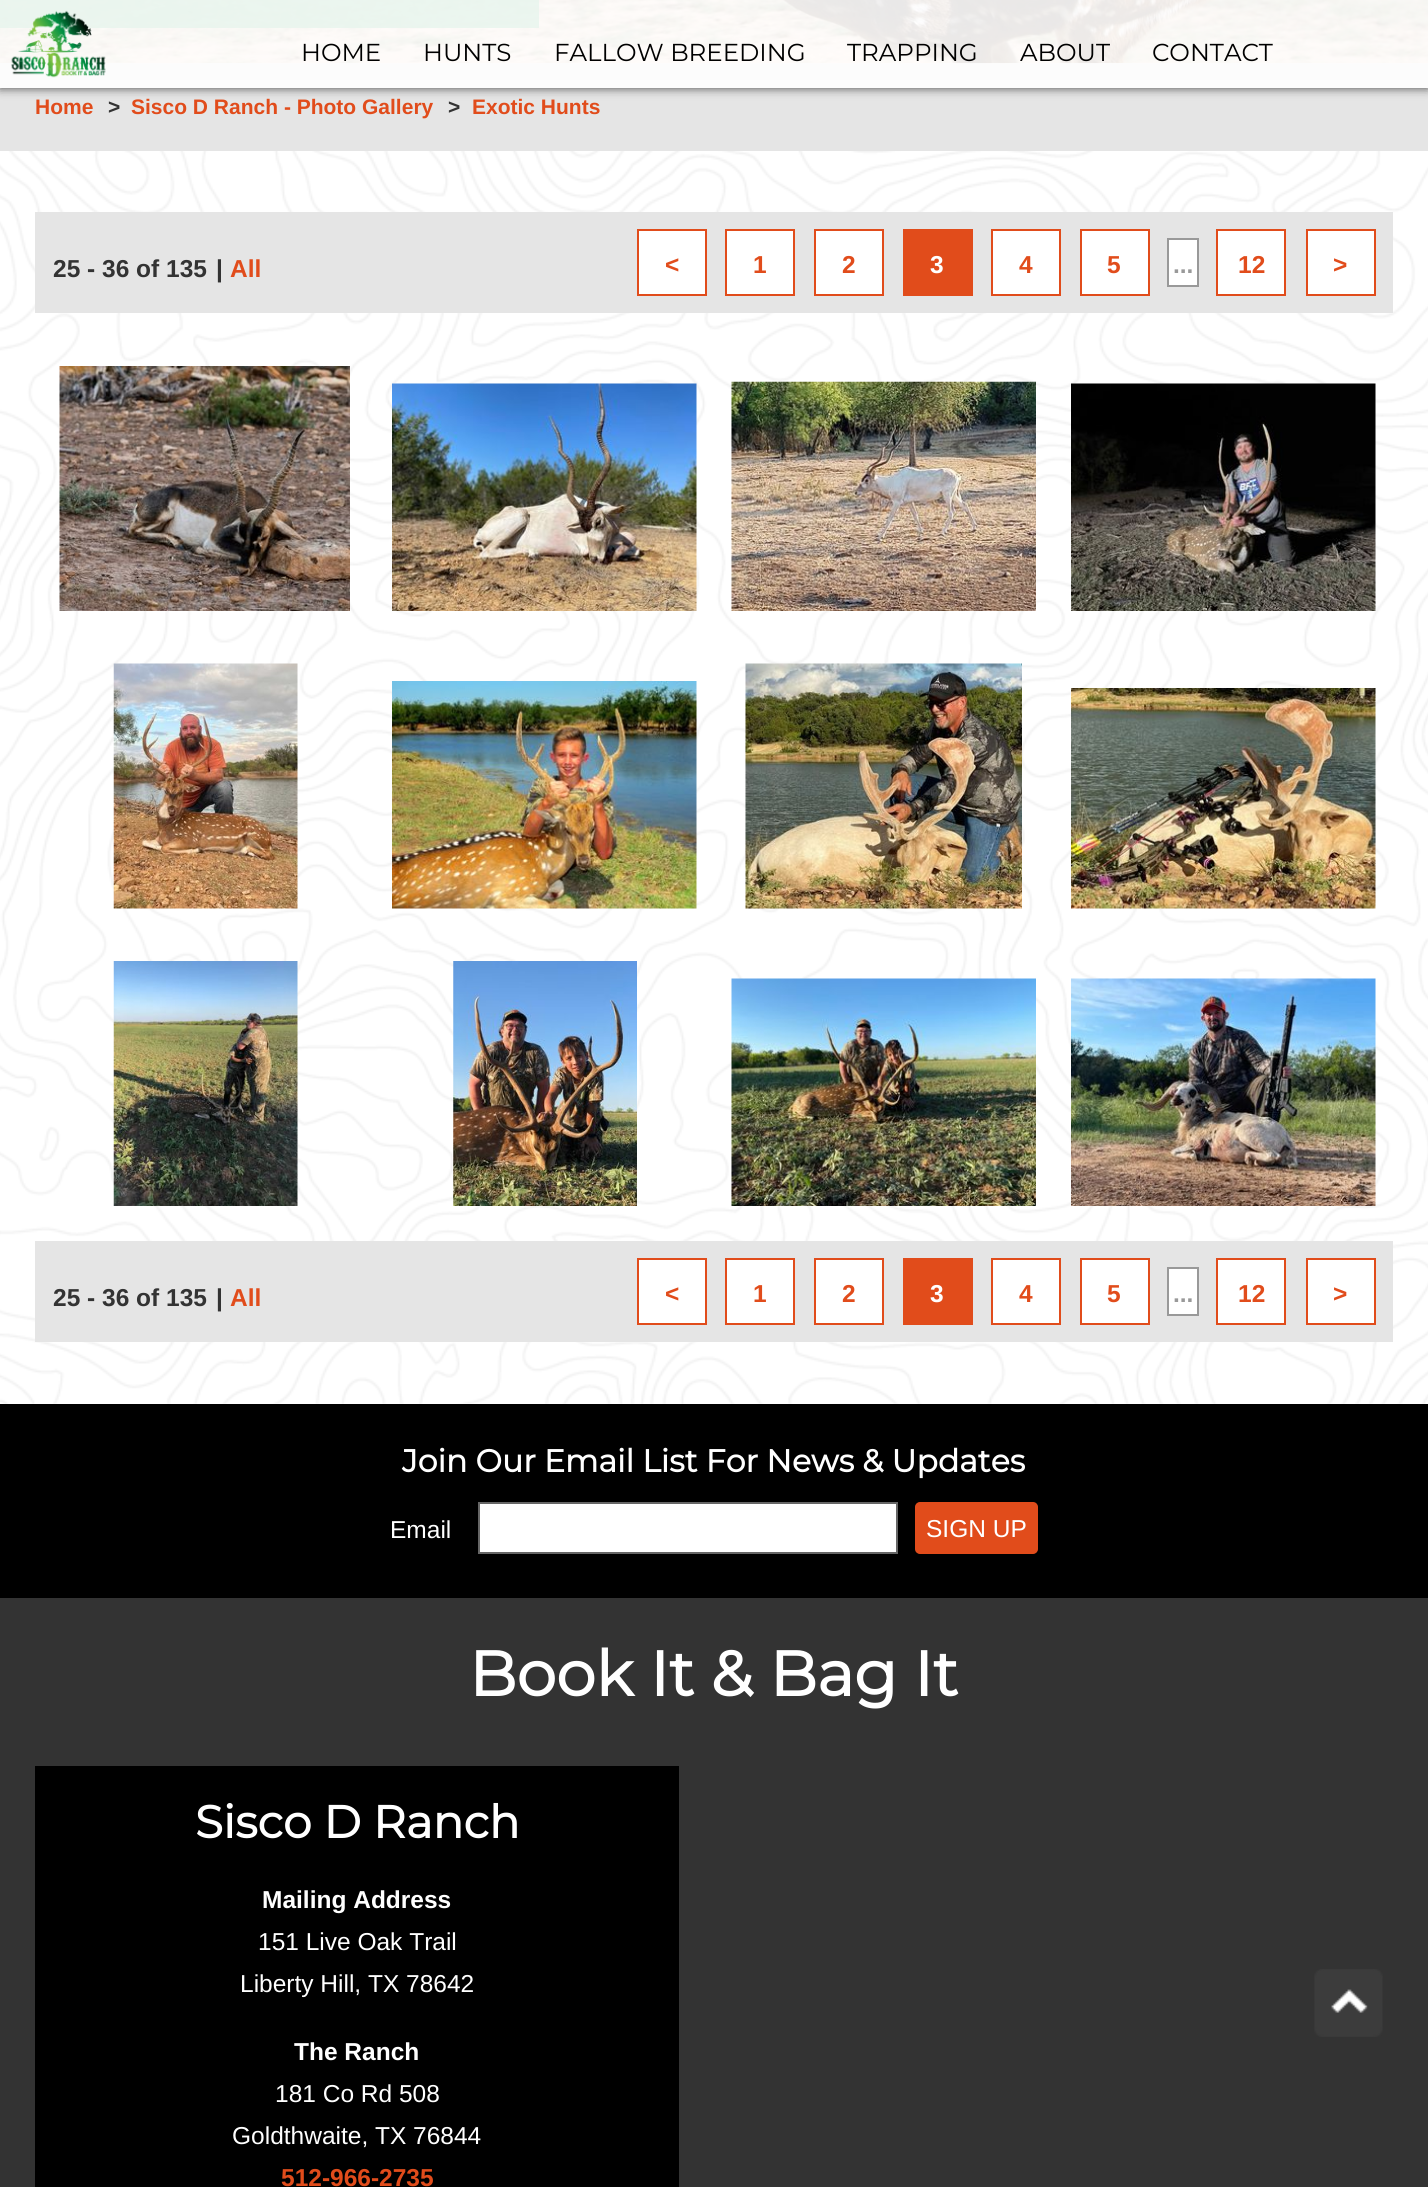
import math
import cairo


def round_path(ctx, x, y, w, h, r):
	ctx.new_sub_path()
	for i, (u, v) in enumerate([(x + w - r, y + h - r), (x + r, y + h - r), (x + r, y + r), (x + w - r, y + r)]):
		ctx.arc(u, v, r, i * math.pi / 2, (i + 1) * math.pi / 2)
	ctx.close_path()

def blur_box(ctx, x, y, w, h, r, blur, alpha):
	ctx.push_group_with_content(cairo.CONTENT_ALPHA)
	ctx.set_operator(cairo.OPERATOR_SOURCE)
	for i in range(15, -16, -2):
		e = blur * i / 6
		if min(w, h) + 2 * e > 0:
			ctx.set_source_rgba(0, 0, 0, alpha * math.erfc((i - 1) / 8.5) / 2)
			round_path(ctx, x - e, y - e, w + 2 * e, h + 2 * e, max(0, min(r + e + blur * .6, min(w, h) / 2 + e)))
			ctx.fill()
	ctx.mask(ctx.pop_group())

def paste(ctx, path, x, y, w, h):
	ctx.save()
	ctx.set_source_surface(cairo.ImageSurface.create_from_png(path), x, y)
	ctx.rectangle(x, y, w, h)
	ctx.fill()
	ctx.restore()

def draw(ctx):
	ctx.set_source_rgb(1, 1, 1)
	ctx.paint()
	ctx.set_source_rgb(0.898, 0.898, 0.898)
	ctx.rectangle(0, 63, 1428, 88)
	ctx.fill()
	paste(ctx, 'media/3.png', 0, 0, 1428, 64)
	ctx.set_source_rgba(0.039, 0.588, 0.271, 0.8)
	ctx.rectangle(0, 0, 539, 28)
	ctx.fill()
	ctx.save()
	ctx.set_fill_rule(cairo.FILL_RULE_EVEN_ODD)
	ctx.new_path()
	ctx.move_to(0, 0)
	ctx.line_to(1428, 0)
	ctx.line_to(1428, 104)
	ctx.line_to(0, 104)
	ctx.close_path()
	ctx.move_to(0, 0)
	ctx.line_to(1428, 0)
	ctx.line_to(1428, 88)
	ctx.line_to(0, 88)
	ctx.close_path()
	ctx.clip()
	ctx.set_source_rgb(0, 0, 0)
	blur_box(ctx, 0, 0, 1428, 88, 0, 5, 0.7)
	ctx.restore()
	ctx.set_source_rgba(1, 1, 1, 0.9)
	ctx.rectangle(0, 0, 1428, 88)
	ctx.fill()
	paste(ctx, 'media/1.png', 11, 10, 95, 68)
	ctx.select_font_face('Montserrat Thin')
	ctx.set_font_size(24.5)
	ctx.set_source_rgb(0, 0, 0)
	for x, y, s in [
		(301, 61, 'HOME'),
		(423, 61, 'HUNTS'),
		(554, 61, 'FALLOW BREEDING'),
		(847, 61, 'TRAPPING'),
		(1020, 61, 'ABOUT'),
		(1152, 61, 'CONTACT'),
	]:
		ctx.move_to(x, y)
		ctx.show_text(s)
	paste(ctx, 'media/2.png', 0, 151, 1428, 1253)
	ctx.select_font_face('Liberation Sans', cairo.FONT_SLANT_NORMAL, cairo.FONT_WEIGHT_BOLD)
	ctx.set_font_size(21)
	ctx.set_source_rgb(0.882, 0.298, 0.106)
	ctx.move_to(35, 114)
	ctx.show_text('Home')
	ctx.set_source_rgb(0.2, 0.2, 0.2)
	ctx.move_to(108, 114)
	ctx.show_text('>')
	ctx.set_source_rgb(0.882, 0.298, 0.106)
	ctx.move_to(131, 114)
	ctx.show_text('Sisco D Ranch - Photo Gallery')
	ctx.set_source_rgb(0.2, 0.2, 0.2)
	ctx.move_to(448, 114)
	ctx.show_text('>')
	ctx.set_source_rgb(0.882, 0.298, 0.106)
	ctx.move_to(472, 114)
	ctx.show_text('Exotic Hunts')
	ctx.set_source_rgb(0.898, 0.898, 0.898)
	ctx.rectangle(35, 212, 1358, 101)
	ctx.fill()
	ctx.set_font_size(24.5)
	ctx.set_source_rgb(0.2, 0.2, 0.2)
	ctx.move_to(53, 277)
	ctx.show_text('25 - 36 of 135')
	ctx.move_to(216, 277)
	ctx.show_text('|')
	ctx.set_source_rgb(0.882, 0.298, 0.106)
	ctx.move_to(230, 277)
	ctx.show_text('All')
	ctx.set_source_rgb(1, 1, 1)
	ctx.rectangle(638, 230, 68, 65)
	ctx.fill_preserve()
	ctx.set_source_rgb(0.882, 0.298, 0.106)
	ctx.stroke()
	ctx.move_to(665, 273)
	ctx.show_text('<')
	ctx.set_source_rgb(1, 1, 1)
	ctx.rectangle(726, 230, 68, 65)
	ctx.fill_preserve()
	ctx.set_source_rgb(0.882, 0.298, 0.106)
	ctx.stroke()
	ctx.move_to(753, 273)
	ctx.show_text('1')
	ctx.set_source_rgb(1, 1, 1)
	ctx.rectangle(815, 230, 68, 65)
	ctx.fill_preserve()
	ctx.set_source_rgb(0.882, 0.298, 0.106)
	ctx.stroke()
	ctx.move_to(842, 273)
	ctx.show_text('2')
	ctx.rectangle(903, 229, 70, 67)
	ctx.fill()
	ctx.set_source_rgb(1, 1, 1)
	ctx.move_to(930, 273)
	ctx.show_text('3')
	ctx.rectangle(992, 230, 68, 65)
	ctx.fill_preserve()
	ctx.set_source_rgb(0.882, 0.298, 0.106)
	ctx.stroke()
	ctx.move_to(1019, 273)
	ctx.show_text('4')
	ctx.set_source_rgb(1, 1, 1)
	ctx.rectangle(1081, 230, 68, 65)
	ctx.fill_preserve()
	ctx.set_source_rgb(0.882, 0.298, 0.106)
	ctx.stroke()
	ctx.move_to(1107, 273)
	ctx.show_text('5')
	ctx.set_source_rgb(1, 1, 1)
	ctx.rectangle(1168, 239, 30, 47)
	ctx.fill_preserve()
	ctx.set_source_rgb(0.6, 0.6, 0.6)
	ctx.stroke()
	ctx.move_to(1173, 273)
	ctx.show_text('...')
	ctx.set_source_rgb(1, 1, 1)
	ctx.rectangle(1217, 230, 68, 65)
	ctx.fill_preserve()
	ctx.set_source_rgb(0.882, 0.298, 0.106)
	ctx.stroke()
	ctx.move_to(1238, 273)
	ctx.show_text('12')
	ctx.set_source_rgb(1, 1, 1)
	ctx.rectangle(1307, 230, 68, 65)
	ctx.fill_preserve()
	ctx.set_source_rgb(0.882, 0.298, 0.106)
	ctx.stroke()
	ctx.move_to(1333, 273)
	ctx.show_text('>')
	paste(ctx, 'media/4.png', 59, 366, 291, 245)
	paste(ctx, 'media/5.png', 392, 383, 305, 228)
	paste(ctx, 'media/6.png', 731, 381, 305, 230)
	paste(ctx, 'media/7.png', 1071, 383, 305, 228)
	paste(ctx, 'media/8.png', 113, 663, 185, 246)
	paste(ctx, 'media/9.png', 392, 681, 305, 228)
	paste(ctx, 'media/10.png', 745, 663, 277, 246)
	paste(ctx, 'media/11.png', 1071, 688, 305, 221)
	paste(ctx, 'media/12.png', 113, 961, 185, 245)
	paste(ctx, 'media/13.png', 453, 961, 184, 245)
	paste(ctx, 'media/14.png', 731, 978, 305, 228)
	paste(ctx, 'media/15.png', 1071, 978, 305, 228)
	ctx.set_source_rgb(0.898, 0.898, 0.898)
	ctx.rectangle(35, 1241, 1358, 101)
	ctx.fill()
	ctx.set_source_rgb(0.2, 0.2, 0.2)
	ctx.move_to(53, 1306)
	ctx.show_text('25 - 36 of 135')
	ctx.move_to(216, 1306)
	ctx.show_text('|')
	ctx.set_source_rgb(0.882, 0.298, 0.106)
	ctx.move_to(230, 1306)
	ctx.show_text('All')
	ctx.set_source_rgb(1, 1, 1)
	ctx.rectangle(638, 1259, 68, 65)
	ctx.fill_preserve()
	ctx.set_source_rgb(0.882, 0.298, 0.106)
	ctx.stroke()
	ctx.move_to(665, 1302)
	ctx.show_text('<')
	ctx.set_source_rgb(1, 1, 1)
	ctx.rectangle(726, 1259, 68, 65)
	ctx.fill_preserve()
	ctx.set_source_rgb(0.882, 0.298, 0.106)
	ctx.stroke()
	ctx.move_to(753, 1302)
	ctx.show_text('1')
	ctx.set_source_rgb(1, 1, 1)
	ctx.rectangle(815, 1259, 68, 65)
	ctx.fill_preserve()
	ctx.set_source_rgb(0.882, 0.298, 0.106)
	ctx.stroke()
	ctx.move_to(842, 1302)
	ctx.show_text('2')
	ctx.rectangle(903, 1258, 70, 67)
	ctx.fill()
	ctx.set_source_rgb(1, 1, 1)
	ctx.move_to(930, 1302)
	ctx.show_text('3')
	ctx.rectangle(992, 1259, 68, 65)
	ctx.fill_preserve()
	ctx.set_source_rgb(0.882, 0.298, 0.106)
	ctx.stroke()
	ctx.move_to(1019, 1302)
	ctx.show_text('4')
	ctx.set_source_rgb(1, 1, 1)
	ctx.rectangle(1081, 1259, 68, 65)
	ctx.fill_preserve()
	ctx.set_source_rgb(0.882, 0.298, 0.106)
	ctx.stroke()
	ctx.move_to(1107, 1302)
	ctx.show_text('5')
	ctx.set_source_rgb(1, 1, 1)
	ctx.rectangle(1168, 1268, 30, 47)
	ctx.fill_preserve()
	ctx.set_source_rgb(0.6, 0.6, 0.6)
	ctx.stroke()
	ctx.move_to(1173, 1302)
	ctx.show_text('...')
	ctx.set_source_rgb(1, 1, 1)
	ctx.rectangle(1217, 1259, 68, 65)
	ctx.fill_preserve()
	ctx.set_source_rgb(0.882, 0.298, 0.106)
	ctx.stroke()
	ctx.move_to(1238, 1302)
	ctx.show_text('12')
	ctx.set_source_rgb(1, 1, 1)
	ctx.rectangle(1307, 1259, 68, 65)
	ctx.fill_preserve()
	ctx.set_source_rgb(0.882, 0.298, 0.106)
	ctx.stroke()
	ctx.move_to(1333, 1302)
	ctx.show_text('>')
	ctx.set_source_rgb(0.2, 0.2, 0.2)
	ctx.rectangle(0, 1598, 1428, 589)
	ctx.fill()
	ctx.set_source_rgb(0, 0, 0)
	ctx.rectangle(0, 1404, 1428, 194)
	ctx.fill()
	ctx.select_font_face('Montserrat', cairo.FONT_SLANT_NORMAL, cairo.FONT_WEIGHT_BOLD)
	ctx.set_font_size(31.5)
	ctx.set_source_rgb(1, 1, 1)
	ctx.move_to(402, 1472)
	ctx.show_text('Join Our Email List For News & Updates')
	ctx.select_font_face('Liberation Sans')
	ctx.set_font_size(24.5)
	ctx.move_to(390, 1538)
	ctx.show_text('Email')
	ctx.rectangle(479, 1503, 418, 50)
	ctx.fill_preserve()
	ctx.set_source_rgb(0.4, 0.4, 0.4)
	ctx.stroke()
	ctx.set_source_rgb(0.882, 0.298, 0.106)
	round_path(ctx, 916, 1503, 121, 50, 4)
	ctx.fill_preserve()
	ctx.stroke()
	ctx.set_source_rgb(1, 1, 1)
	ctx.move_to(926, 1537)
	ctx.show_text('SIGN UP')
	ctx.select_font_face('Montserrat', cairo.FONT_SLANT_NORMAL, cairo.FONT_WEIGHT_BOLD)
	ctx.set_font_size(63)
	ctx.move_to(469, 1696)
	ctx.show_text('Book It & Bag It')
	ctx.set_source_rgb(0, 0, 0)
	ctx.rectangle(35, 1766, 644, 421)
	ctx.fill()
	ctx.set_font_size(45.5)
	ctx.set_source_rgb(1, 1, 1)
	ctx.move_to(195, 1838)
	ctx.show_text('Sisco D Ranch')
	ctx.select_font_face('Liberation Sans', cairo.FONT_SLANT_NORMAL, cairo.FONT_WEIGHT_BOLD)
	ctx.set_font_size(24.5)
	ctx.move_to(262, 1908)
	ctx.show_text('Mailing Address')
	ctx.select_font_face('Liberation Sans')
	ctx.move_to(258, 1950)
	ctx.show_text('151 Live Oak Trail')
	ctx.move_to(240, 1992)
	ctx.show_text('Liberty Hill, TX 78642')
	ctx.select_font_face('Liberation Sans', cairo.FONT_SLANT_NORMAL, cairo.FONT_WEIGHT_BOLD)
	ctx.move_to(294, 2060)
	ctx.show_text('The Ranch')
	ctx.select_font_face('Liberation Sans')
	ctx.move_to(275, 2102)
	ctx.show_text('181 Co Rd 508')
	ctx.move_to(232, 2144)
	ctx.show_text('Goldthwaite, TX 76844')
	ctx.select_font_face('Liberation Sans', cairo.FONT_SLANT_NORMAL, cairo.FONT_WEIGHT_BOLD)
	ctx.set_source_rgb(0.882, 0.298, 0.106)
	ctx.move_to(281, 2186)
	ctx.show_text('512-966-2735')
	paste(ctx, 'media/16.png', 1314, 1969, 69, 68)


surface = cairo.ImageSurface(cairo.FORMAT_RGB24, 1428, 2187)
ctx = cairo.Context(surface)
options = cairo.FontOptions()
options.set_hint_metrics(cairo.HINT_METRICS_OFF)
options.set_hint_style(cairo.HINT_STYLE_NONE)
ctx.set_font_options(options)
ctx.set_miter_limit(4)
draw(ctx)
surface.write_to_png('image.png')
